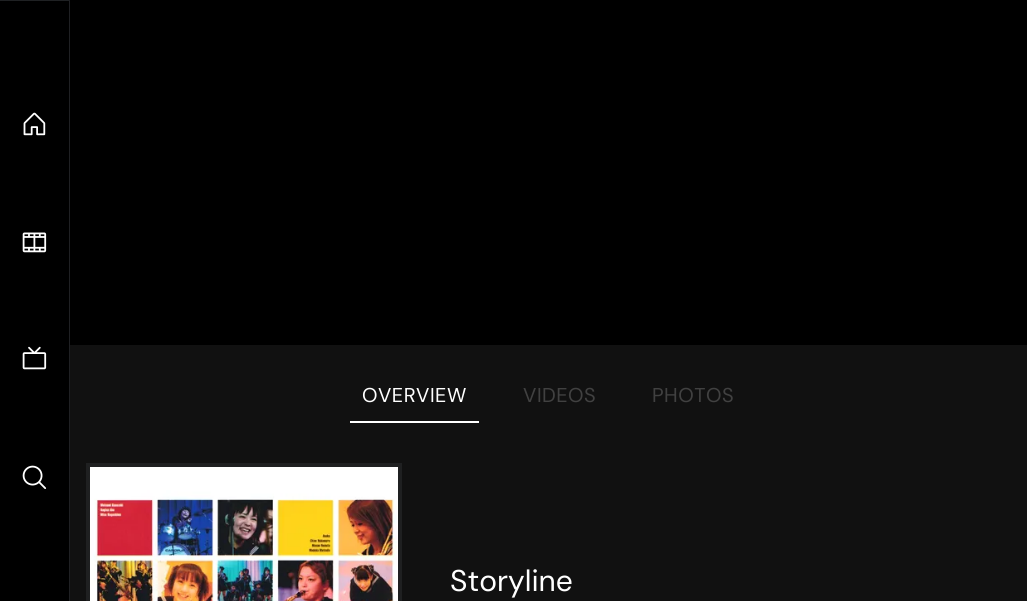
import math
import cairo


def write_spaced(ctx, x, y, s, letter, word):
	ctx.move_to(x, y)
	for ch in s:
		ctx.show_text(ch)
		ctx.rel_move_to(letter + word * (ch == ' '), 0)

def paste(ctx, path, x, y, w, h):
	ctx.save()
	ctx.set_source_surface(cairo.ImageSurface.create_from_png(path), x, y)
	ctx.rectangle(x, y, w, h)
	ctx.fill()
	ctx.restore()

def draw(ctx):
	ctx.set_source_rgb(0.067, 0.067, 0.067)
	ctx.paint()
	ctx.set_source_rgb(0, 0, 0)
	ctx.rectangle(0, 0, 70, 601)
	ctx.fill()
	ctx.set_source_rgb(0.122, 0.129, 0.137)
	ctx.new_path()
	ctx.move_to(0, 0)
	ctx.line_to(70, 0)
	ctx.line_to(69, 1)
	ctx.line_to(0, 1)
	ctx.close_path()
	ctx.fill()
	ctx.set_source_rgba(0.612, 0.639, 0.686, 0.2)
	ctx.new_path()
	ctx.move_to(70, 0)
	ctx.line_to(70, 601)
	ctx.line_to(69, 601)
	ctx.line_to(69, 1)
	ctx.close_path()
	ctx.fill()
	paste(ctx, 'media/1.png', 23, 112, 23, 24)
	paste(ctx, 'media/2.png', 22, 232, 25, 21)
	paste(ctx, 'media/3.png', 22, 346, 25, 24)
	paste(ctx, 'media/4.png', 22, 465, 25, 24)
	ctx.set_source_rgb(0, 0, 0)
	ctx.rectangle(70, 0, 957, 345)
	ctx.fill()
	ctx.set_source_rgb(1, 1, 1)
	ctx.rectangle(350, 421, 129, 2)
	ctx.fill()
	ctx.select_font_face('DM Sans')
	ctx.set_font_size(20)
	write_spaced(ctx, 362, 402, 'OVERVIEW', 0.5, 0)
	ctx.set_source_rgb(0.255, 0.255, 0.255)
	write_spaced(ctx, 523, 402, 'VIDEOS', 0.5, 0)
	write_spaced(ctx, 652, 402, 'PHOTOS', 0.5, 0)
	ctx.rectangle(88, 465, 312, 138)
	ctx.set_source_rgb(0.122, 0.125, 0.129)
	ctx.set_line_width(4)
	ctx.stroke()
	paste(ctx, 'media/5.png', 90, 467, 308, 134)
	ctx.set_font_size(30)
	ctx.set_source_rgb(1, 1, 1)
	ctx.move_to(450, 591)
	ctx.show_text('Storyline')


surface = cairo.ImageSurface(cairo.FORMAT_RGB24, 1027, 601)
ctx = cairo.Context(surface)
options = cairo.FontOptions()
options.set_hint_metrics(cairo.HINT_METRICS_OFF)
options.set_hint_style(cairo.HINT_STYLE_NONE)
ctx.set_font_options(options)
ctx.set_miter_limit(4)
draw(ctx)
surface.write_to_png('image.png')
